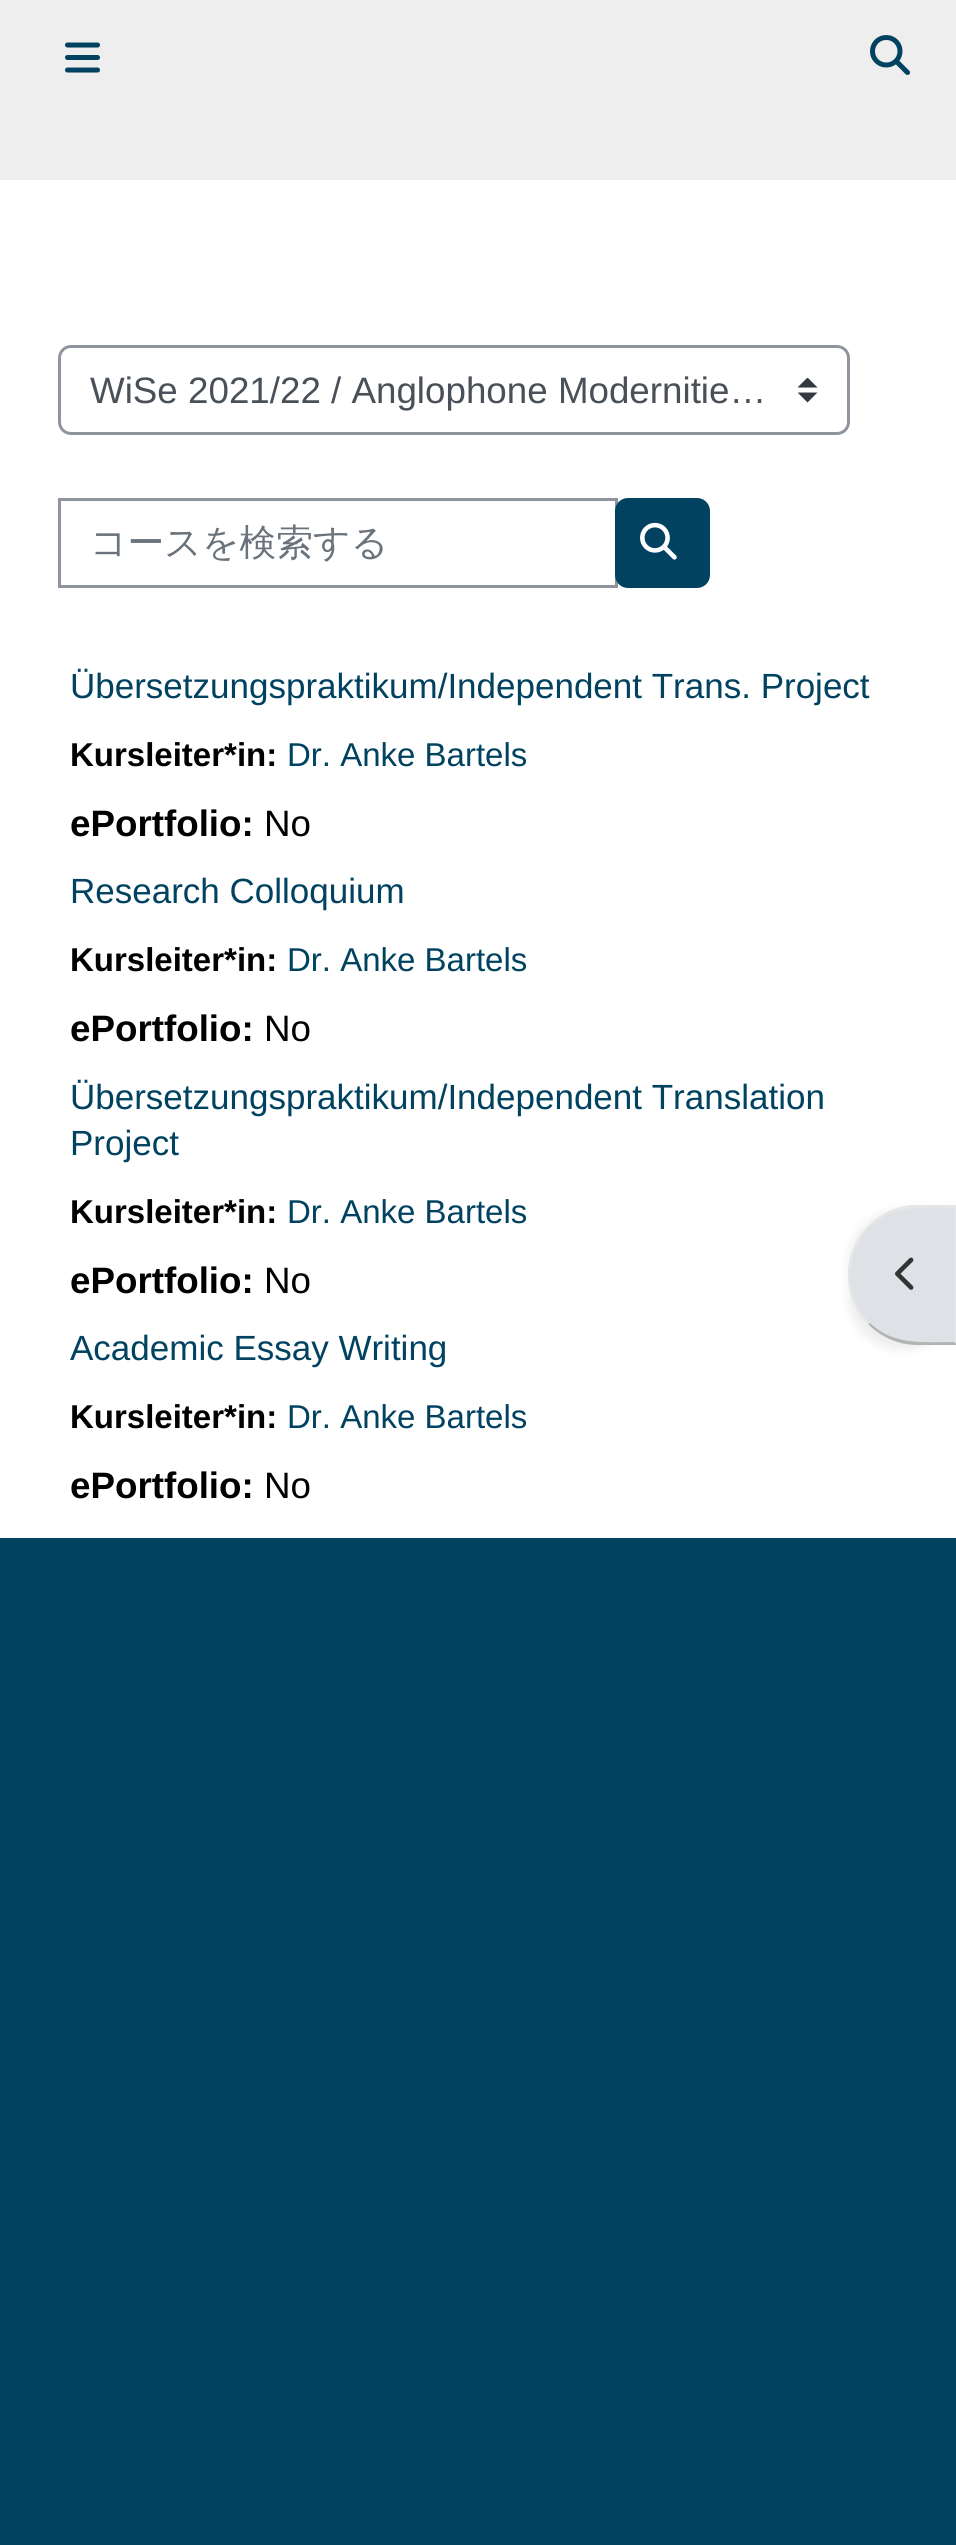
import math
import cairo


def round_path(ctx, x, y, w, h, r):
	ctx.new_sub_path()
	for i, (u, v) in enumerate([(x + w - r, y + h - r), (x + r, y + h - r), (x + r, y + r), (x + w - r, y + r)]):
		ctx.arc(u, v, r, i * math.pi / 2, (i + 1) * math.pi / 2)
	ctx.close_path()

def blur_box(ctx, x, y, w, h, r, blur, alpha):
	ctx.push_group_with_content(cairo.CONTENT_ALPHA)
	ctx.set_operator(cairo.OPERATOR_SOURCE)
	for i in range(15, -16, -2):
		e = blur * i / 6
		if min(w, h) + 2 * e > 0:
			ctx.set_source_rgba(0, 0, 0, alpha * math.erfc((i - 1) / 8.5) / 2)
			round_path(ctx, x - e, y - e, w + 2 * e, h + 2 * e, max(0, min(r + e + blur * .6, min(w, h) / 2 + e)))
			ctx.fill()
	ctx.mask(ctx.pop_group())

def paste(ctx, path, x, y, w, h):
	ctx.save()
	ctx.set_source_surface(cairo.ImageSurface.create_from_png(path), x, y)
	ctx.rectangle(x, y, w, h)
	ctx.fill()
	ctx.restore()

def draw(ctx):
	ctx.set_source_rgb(0, 0.259, 0.376)
	ctx.paint()
	ctx.set_source_rgb(0.933, 0.933, 0.933)
	ctx.rectangle(0, 0, 956, 180)
	ctx.fill()
	paste(ctx, 'media/1.png', 65, 42, 35, 31)
	paste(ctx, 'media/2.png', 870, 35, 40, 40)
	ctx.set_source_rgb(1, 1, 1)
	ctx.rectangle(0, 180, 956, 1358)
	ctx.fill()
	ctx.save()
	ctx.rectangle(798, 378, 20, 25)
	ctx.clip()
	ctx.set_source_rgb(0.204, 0.227, 0.251)
	ctx.new_path()
	ctx.move_to(807.5, 377.5)
	ctx.line_to(797.5, 387.5)
	ctx.line_to(817.5, 387.5)
	ctx.close_path()
	ctx.move_to(807.5, 402.5)
	ctx.line_to(797.5, 392.5)
	ctx.line_to(817.5, 392.5)
	ctx.close_path()
	ctx.fill()
	ctx.restore()
	round_path(ctx, 59.5, 346.5, 789, 87, 11.5)
	ctx.set_source_rgb(0.561, 0.584, 0.62)
	ctx.set_line_width(3)
	ctx.stroke()
	ctx.select_font_face('Liberation Sans')
	ctx.set_font_size(36.75)
	ctx.set_source_rgb(0.286, 0.314, 0.341)
	ctx.move_to(90, 403)
	ctx.show_text('WiSe 2021/22 / Anglophone Modernitie…')
	ctx.rectangle(59.5, 499.5, 557, 87)
	ctx.set_source_rgb(0.561, 0.584, 0.62)
	ctx.stroke()
	ctx.select_font_face('WenQuanYi Zen Hei Medium')
	ctx.set_source_rgb(0.416, 0.451, 0.482)
	ctx.move_to(90, 555)
	ctx.show_text('コースを検索する')
	ctx.set_source_rgb(0.004, 0.259, 0.376)
	round_path(ctx, 615, 498, 95, 90, 13)
	ctx.fill()
	paste(ctx, 'media/3.png', 640, 522, 37, 38)
	ctx.select_font_face('Liberation Sans')
	ctx.set_font_size(35)
	ctx.set_source_rgb(0, 0.259, 0.376)
	ctx.move_to(70, 698)
	ctx.show_text('Übersetzungspraktikum/Independent Trans. Project')
	ctx.select_font_face('Liberation Sans', cairo.FONT_SLANT_NORMAL, cairo.FONT_WEIGHT_BOLD)
	ctx.set_font_size(33)
	ctx.set_source_rgb(0, 0, 0)
	ctx.move_to(70, 766)
	ctx.show_text('Kursleiter*in:')
	ctx.select_font_face('Liberation Sans')
	ctx.set_source_rgb(0, 0.259, 0.376)
	ctx.move_to(287, 766)
	ctx.show_text('Dr. Anke Bartels')
	ctx.select_font_face('Liberation Sans', cairo.FONT_SLANT_NORMAL, cairo.FONT_WEIGHT_BOLD)
	ctx.set_font_size(36.75)
	ctx.set_source_rgb(0, 0, 0)
	ctx.move_to(70, 836)
	ctx.show_text('ePortfolio:')
	ctx.select_font_face('Liberation Sans')
	ctx.move_to(264, 836)
	ctx.show_text('No')
	ctx.set_font_size(35)
	ctx.set_source_rgb(0, 0.259, 0.376)
	ctx.move_to(70, 903)
	ctx.show_text('Research Colloquium')
	ctx.select_font_face('Liberation Sans', cairo.FONT_SLANT_NORMAL, cairo.FONT_WEIGHT_BOLD)
	ctx.set_font_size(33)
	ctx.set_source_rgb(0, 0, 0)
	ctx.move_to(70, 971)
	ctx.show_text('Kursleiter*in:')
	ctx.select_font_face('Liberation Sans')
	ctx.set_source_rgb(0, 0.259, 0.376)
	ctx.move_to(287, 971)
	ctx.show_text('Dr. Anke Bartels')
	ctx.select_font_face('Liberation Sans', cairo.FONT_SLANT_NORMAL, cairo.FONT_WEIGHT_BOLD)
	ctx.set_font_size(36.75)
	ctx.set_source_rgb(0, 0, 0)
	ctx.move_to(70, 1041)
	ctx.show_text('ePortfolio:')
	ctx.select_font_face('Liberation Sans')
	ctx.move_to(264, 1041)
	ctx.show_text('No')
	ctx.set_font_size(35)
	ctx.set_source_rgb(0, 0.259, 0.376)
	ctx.move_to(70, 1109)
	ctx.show_text('Übersetzungspraktikum/Independent Translation')
	ctx.move_to(70, 1155)
	ctx.show_text('Project')
	ctx.select_font_face('Liberation Sans', cairo.FONT_SLANT_NORMAL, cairo.FONT_WEIGHT_BOLD)
	ctx.set_font_size(33)
	ctx.set_source_rgb(0, 0, 0)
	ctx.move_to(70, 1223)
	ctx.show_text('Kursleiter*in:')
	ctx.select_font_face('Liberation Sans')
	ctx.set_source_rgb(0, 0.259, 0.376)
	ctx.move_to(287, 1223)
	ctx.show_text('Dr. Anke Bartels')
	ctx.select_font_face('Liberation Sans', cairo.FONT_SLANT_NORMAL, cairo.FONT_WEIGHT_BOLD)
	ctx.set_font_size(36.75)
	ctx.set_source_rgb(0, 0, 0)
	ctx.move_to(70, 1293)
	ctx.show_text('ePortfolio:')
	ctx.select_font_face('Liberation Sans')
	ctx.move_to(264, 1293)
	ctx.show_text('No')
	ctx.set_font_size(35)
	ctx.set_source_rgb(0, 0.259, 0.376)
	ctx.move_to(70, 1360)
	ctx.show_text('Academic Essay Writing')
	ctx.select_font_face('Liberation Sans', cairo.FONT_SLANT_NORMAL, cairo.FONT_WEIGHT_BOLD)
	ctx.set_font_size(33)
	ctx.set_source_rgb(0, 0, 0)
	ctx.move_to(70, 1428)
	ctx.show_text('Kursleiter*in:')
	ctx.select_font_face('Liberation Sans')
	ctx.set_source_rgb(0, 0.259, 0.376)
	ctx.move_to(287, 1428)
	ctx.show_text('Dr. Anke Bartels')
	ctx.select_font_face('Liberation Sans', cairo.FONT_SLANT_NORMAL, cairo.FONT_WEIGHT_BOLD)
	ctx.set_font_size(36.75)
	ctx.set_source_rgb(0, 0, 0)
	ctx.move_to(70, 1498)
	ctx.show_text('ePortfolio:')
	ctx.select_font_face('Liberation Sans')
	ctx.move_to(264, 1498)
	ctx.show_text('No')
	ctx.set_source_rgb(0, 0, 0)
	blur_box(ctx, 848, 1210, 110, 140, 70, 5, 0.07)
	ctx.set_source_rgb(0.871, 0.886, 0.902)
	ctx.new_path()
	ctx.move_to(918, 1205)
	ctx.line_to(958, 1205)
	ctx.line_to(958, 1345)
	ctx.line_to(918, 1345)
	ctx.curve_to(879.5, 1345, 848, 1313.5, 848, 1275)
	ctx.curve_to(848, 1236.5, 879.5, 1205, 918, 1205)
	ctx.close_path()
	ctx.fill()
	ctx.set_source_rgb(0.902, 0.902, 0.902)
	ctx.new_path()
	ctx.move_to(918, 1205)
	ctx.curve_to(898, 1205, 881, 1213, 868, 1226)
	ctx.line_to(870, 1227)
	ctx.curve_to(894, 1204, 924, 1208, 954, 1208)
	ctx.line_to(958, 1205)
	ctx.close_path()
	ctx.fill()
	ctx.new_path()
	ctx.move_to(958, 1205)
	ctx.line_to(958, 1345)
	ctx.line_to(954, 1342)
	ctx.line_to(955, 1342)
	ctx.line_to(955, 1208)
	ctx.line_to(954, 1208)
	ctx.close_path()
	ctx.fill()
	ctx.set_source_rgb(0.702, 0.702, 0.702)
	ctx.new_path()
	ctx.move_to(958, 1345)
	ctx.line_to(954, 1342)
	ctx.curve_to(924, 1342, 894, 1346, 870, 1323)
	ctx.line_to(868, 1324)
	ctx.curve_to(881, 1337, 898, 1345, 918, 1345)
	ctx.close_path()
	ctx.fill()
	ctx.set_source_rgb(0.902, 0.902, 0.902)
	ctx.new_path()
	ctx.move_to(868, 1226)
	ctx.curve_to(842, 1252, 842, 1298, 868, 1324)
	ctx.line_to(870, 1323)
	ctx.curve_to(844, 1297, 844, 1253, 870, 1227)
	ctx.close_path()
	ctx.fill()
	paste(ctx, 'media/4.png', 895, 1257, 19, 33)


surface = cairo.ImageSurface(cairo.FORMAT_RGB24, 956, 2545)
ctx = cairo.Context(surface)
options = cairo.FontOptions()
options.set_hint_metrics(cairo.HINT_METRICS_OFF)
options.set_hint_style(cairo.HINT_STYLE_NONE)
ctx.set_font_options(options)
ctx.set_miter_limit(4)
draw(ctx)
surface.write_to_png('image.png')
